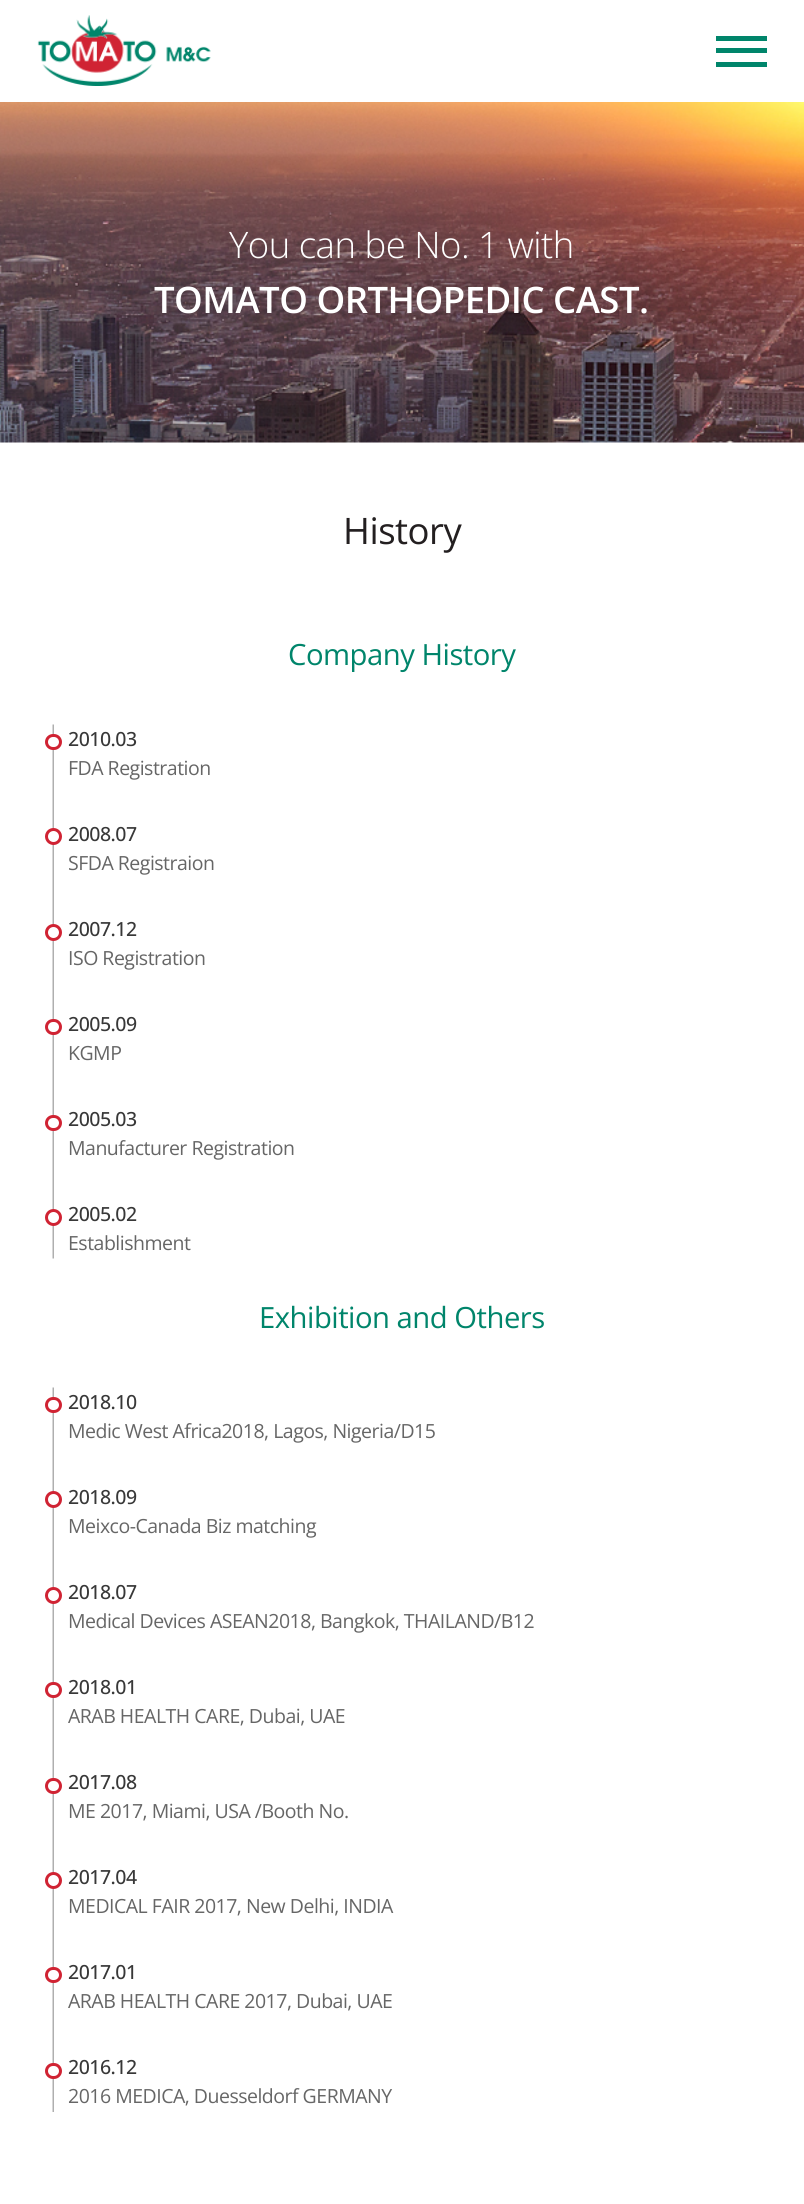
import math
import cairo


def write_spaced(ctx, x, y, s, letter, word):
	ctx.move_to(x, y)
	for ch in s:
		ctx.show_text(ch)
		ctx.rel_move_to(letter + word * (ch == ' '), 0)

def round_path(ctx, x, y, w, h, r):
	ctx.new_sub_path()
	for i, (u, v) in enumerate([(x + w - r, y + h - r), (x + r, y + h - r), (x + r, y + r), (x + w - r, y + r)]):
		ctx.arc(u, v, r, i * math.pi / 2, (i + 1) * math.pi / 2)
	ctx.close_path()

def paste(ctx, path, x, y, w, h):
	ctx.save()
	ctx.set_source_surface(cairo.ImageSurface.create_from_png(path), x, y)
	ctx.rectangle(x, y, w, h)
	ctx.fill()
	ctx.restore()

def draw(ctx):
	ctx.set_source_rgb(1, 1, 1)
	ctx.paint()
	paste(ctx, 'media/1.png', 37, 15, 174, 71)
	ctx.set_source_rgb(0, 0.522, 0.42)
	ctx.rectangle(716, 36, 51, 5)
	ctx.rectangle(716, 48, 51, 5)
	ctx.rectangle(716, 62, 51, 5)
	ctx.fill()
	paste(ctx, 'media/2.png', 0, 102, 804, 341)
	ctx.select_font_face('Open Sans Light')
	ctx.set_font_size(36.5)
	ctx.set_source_rgb(1, 1, 1)
	write_spaced(ctx, 229, 258, 'You can be No. 1 with', -0.5, 0)
	ctx.select_font_face('Open Sans SemiBold')
	write_spaced(ctx, 154, 313, 'TOMATO ORTHOPEDIC CAST.', -0.5, 0)
	ctx.select_font_face('Open Sans')
	ctx.set_source_rgb(0.137, 0.122, 0.125)
	write_spaced(ctx, 343, 544, 'History', -0.5, 0)
	ctx.set_font_size(29.25)
	ctx.set_source_rgb(0, 0.522, 0.42)
	write_spaced(ctx, 288, 665, 'Company History', -0.5, 0)
	paste(ctx, 'media/3.png', 52, 724, 2, 535)
	ctx.set_source_rgb(1, 1, 1)
	round_path(ctx, 46.5, 735.5, 14, 13, 6.5)
	ctx.fill_preserve()
	ctx.set_source_rgb(0.816, 0.137, 0.2)
	ctx.set_line_width(3)
	ctx.stroke()
	ctx.select_font_face('Open Sans Medium')
	ctx.set_font_size(19.5)
	ctx.set_source_rgb(0.22, 0.22, 0.22)
	write_spaced(ctx, 68, 746, '2010.03', -0.5, 0)
	ctx.select_font_face('Open Sans')
	ctx.set_source_rgb(0.4, 0.4, 0.4)
	write_spaced(ctx, 68, 775, 'FDA Registration', -0.5, 0)
	ctx.set_source_rgb(1, 1, 1)
	ctx.new_path()
	ctx.arc(53.5, 836.5, 7, 0, 2 * math.pi)
	ctx.fill_preserve()
	ctx.set_source_rgb(0.816, 0.137, 0.2)
	ctx.stroke()
	ctx.select_font_face('Open Sans Medium')
	ctx.set_source_rgb(0.22, 0.22, 0.22)
	write_spaced(ctx, 68, 841, '2008.07', -0.5, 0)
	ctx.select_font_face('Open Sans')
	ctx.set_source_rgb(0.4, 0.4, 0.4)
	write_spaced(ctx, 68, 870, 'SFDA Registraion', -0.5, 0)
	ctx.set_source_rgb(1, 1, 1)
	ctx.new_path()
	ctx.arc(53.5, 932.5, 7, 0, 2 * math.pi)
	ctx.fill_preserve()
	ctx.set_source_rgb(0.816, 0.137, 0.2)
	ctx.stroke()
	ctx.select_font_face('Open Sans Medium')
	ctx.set_source_rgb(0.22, 0.22, 0.22)
	write_spaced(ctx, 68, 936, '2007.12', -0.5, 0)
	ctx.select_font_face('Open Sans')
	ctx.set_source_rgb(0.4, 0.4, 0.4)
	write_spaced(ctx, 68, 965, 'ISO Registration', -0.5, 0)
	ctx.set_source_rgb(1, 1, 1)
	round_path(ctx, 46.5, 1020.5, 14, 13, 6.5)
	ctx.fill_preserve()
	ctx.set_source_rgb(0.816, 0.137, 0.2)
	ctx.stroke()
	ctx.select_font_face('Open Sans Medium')
	ctx.set_source_rgb(0.22, 0.22, 0.22)
	write_spaced(ctx, 68, 1031, '2005.09', -0.5, 0)
	ctx.select_font_face('Open Sans')
	ctx.set_source_rgb(0.4, 0.4, 0.4)
	write_spaced(ctx, 68, 1060, 'KGMP', -0.5, 0)
	ctx.set_source_rgb(1, 1, 1)
	round_path(ctx, 46.5, 1116.5, 14, 13, 6.5)
	ctx.fill_preserve()
	ctx.set_source_rgb(0.816, 0.137, 0.2)
	ctx.stroke()
	ctx.select_font_face('Open Sans Medium')
	ctx.set_source_rgb(0.22, 0.22, 0.22)
	write_spaced(ctx, 68, 1126, '2005.03', -0.5, 0)
	ctx.select_font_face('Open Sans')
	ctx.set_source_rgb(0.4, 0.4, 0.4)
	write_spaced(ctx, 68, 1155, 'Manufacturer Registration', -0.5, 0)
	ctx.set_source_rgb(1, 1, 1)
	ctx.new_path()
	ctx.arc(53.5, 1217.5, 7, 0, 2 * math.pi)
	ctx.fill_preserve()
	ctx.set_source_rgb(0.816, 0.137, 0.2)
	ctx.stroke()
	ctx.select_font_face('Open Sans Medium')
	ctx.set_source_rgb(0.22, 0.22, 0.22)
	write_spaced(ctx, 68, 1221, '2005.02', -0.5, 0)
	ctx.select_font_face('Open Sans')
	ctx.set_source_rgb(0.4, 0.4, 0.4)
	write_spaced(ctx, 68, 1250, 'Establishment', -0.5, 0)
	ctx.set_font_size(29.25)
	ctx.set_source_rgb(0, 0.522, 0.42)
	write_spaced(ctx, 259, 1328, 'Exhibition and Others', -0.5, 0)
	paste(ctx, 'media/4.png', 52, 1387, 2, 725)
	ctx.set_source_rgb(1, 1, 1)
	round_path(ctx, 46.5, 1398.5, 14, 13, 6.5)
	ctx.fill_preserve()
	ctx.set_source_rgb(0.816, 0.137, 0.2)
	ctx.stroke()
	ctx.select_font_face('Open Sans Medium')
	ctx.set_font_size(19.5)
	ctx.set_source_rgb(0.22, 0.22, 0.22)
	write_spaced(ctx, 68, 1409, '2018.10', -0.5, 0)
	ctx.select_font_face('Open Sans')
	ctx.set_source_rgb(0.4, 0.4, 0.4)
	write_spaced(ctx, 68, 1438, 'Medic West Africa2018, Lagos, Nigeria/D15', -0.5, 0)
	ctx.set_source_rgb(1, 1, 1)
	ctx.new_path()
	ctx.arc(53.5, 1499.5, 7, 0, 2 * math.pi)
	ctx.fill_preserve()
	ctx.set_source_rgb(0.816, 0.137, 0.2)
	ctx.stroke()
	ctx.select_font_face('Open Sans Medium')
	ctx.set_source_rgb(0.22, 0.22, 0.22)
	write_spaced(ctx, 68, 1504, '2018.09', -0.5, 0)
	ctx.select_font_face('Open Sans')
	ctx.set_source_rgb(0.4, 0.4, 0.4)
	write_spaced(ctx, 68, 1533, 'Meixco-Canada Biz matching', -0.5, 0)
	ctx.set_source_rgb(1, 1, 1)
	ctx.new_path()
	ctx.arc(53.5, 1595.5, 7, 0, 2 * math.pi)
	ctx.fill_preserve()
	ctx.set_source_rgb(0.816, 0.137, 0.2)
	ctx.stroke()
	ctx.select_font_face('Open Sans Medium')
	ctx.set_source_rgb(0.22, 0.22, 0.22)
	write_spaced(ctx, 68, 1599, '2018.07', -0.5, 0)
	ctx.select_font_face('Open Sans')
	ctx.set_source_rgb(0.4, 0.4, 0.4)
	write_spaced(ctx, 68, 1628, 'Medical Devices ASEAN2018, Bangkok, THAILAND/B12', -0.5, 0)
	ctx.set_source_rgb(1, 1, 1)
	round_path(ctx, 46.5, 1683.5, 14, 13, 6.5)
	ctx.fill_preserve()
	ctx.set_source_rgb(0.816, 0.137, 0.2)
	ctx.stroke()
	ctx.select_font_face('Open Sans Medium')
	ctx.set_source_rgb(0.22, 0.22, 0.22)
	write_spaced(ctx, 68, 1694, '2018.01', -0.5, 0)
	ctx.select_font_face('Open Sans')
	ctx.set_source_rgb(0.4, 0.4, 0.4)
	write_spaced(ctx, 68, 1723, 'ARAB HEALTH CARE, Dubai, UAE', -0.5, 0)
	ctx.set_source_rgb(1, 1, 1)
	round_path(ctx, 46.5, 1779.5, 14, 13, 6.5)
	ctx.fill_preserve()
	ctx.set_source_rgb(0.816, 0.137, 0.2)
	ctx.stroke()
	ctx.select_font_face('Open Sans Medium')
	ctx.set_source_rgb(0.22, 0.22, 0.22)
	write_spaced(ctx, 68, 1789, '2017.08', -0.5, 0)
	ctx.select_font_face('Open Sans')
	ctx.set_source_rgb(0.4, 0.4, 0.4)
	write_spaced(ctx, 68, 1818, 'ME 2017, Miami, USA /Booth No.', -0.5, 0)
	ctx.set_source_rgb(1, 1, 1)
	ctx.new_path()
	ctx.arc(53.5, 1880.5, 7, 0, 2 * math.pi)
	ctx.fill_preserve()
	ctx.set_source_rgb(0.816, 0.137, 0.2)
	ctx.stroke()
	ctx.select_font_face('Open Sans Medium')
	ctx.set_source_rgb(0.22, 0.22, 0.22)
	write_spaced(ctx, 68, 1884, '2017.04', -0.5, 0)
	ctx.select_font_face('Open Sans')
	ctx.set_source_rgb(0.4, 0.4, 0.4)
	write_spaced(ctx, 68, 1913, 'MEDICAL FAIR 2017, New Delhi, INDIA', -0.5, 0)
	ctx.set_source_rgb(1, 1, 1)
	round_path(ctx, 46.5, 1968.5, 14, 13, 6.5)
	ctx.fill_preserve()
	ctx.set_source_rgb(0.816, 0.137, 0.2)
	ctx.stroke()
	ctx.select_font_face('Open Sans Medium')
	ctx.set_source_rgb(0.22, 0.22, 0.22)
	write_spaced(ctx, 68, 1979, '2017.01', -0.5, 0)
	ctx.select_font_face('Open Sans')
	ctx.set_source_rgb(0.4, 0.4, 0.4)
	write_spaced(ctx, 68, 2008, 'ARAB HEALTH CARE 2017, Dubai, UAE', -0.5, 0)
	ctx.set_source_rgb(1, 1, 1)
	round_path(ctx, 46.5, 2064.5, 14, 13, 6.5)
	ctx.fill_preserve()
	ctx.set_source_rgb(0.816, 0.137, 0.2)
	ctx.stroke()
	ctx.select_font_face('Open Sans Medium')
	ctx.set_source_rgb(0.22, 0.22, 0.22)
	write_spaced(ctx, 68, 2074, '2016.12', -0.5, 0)
	ctx.select_font_face('Open Sans')
	ctx.set_source_rgb(0.4, 0.4, 0.4)
	write_spaced(ctx, 68, 2103, '2016 MEDICA, Duesseldorf GERMANY', -0.5, 0)


surface = cairo.ImageSurface(cairo.FORMAT_RGB24, 804, 2204)
ctx = cairo.Context(surface)
options = cairo.FontOptions()
options.set_hint_metrics(cairo.HINT_METRICS_OFF)
options.set_hint_style(cairo.HINT_STYLE_NONE)
ctx.set_font_options(options)
ctx.set_miter_limit(4)
draw(ctx)
surface.write_to_png('image.png')
